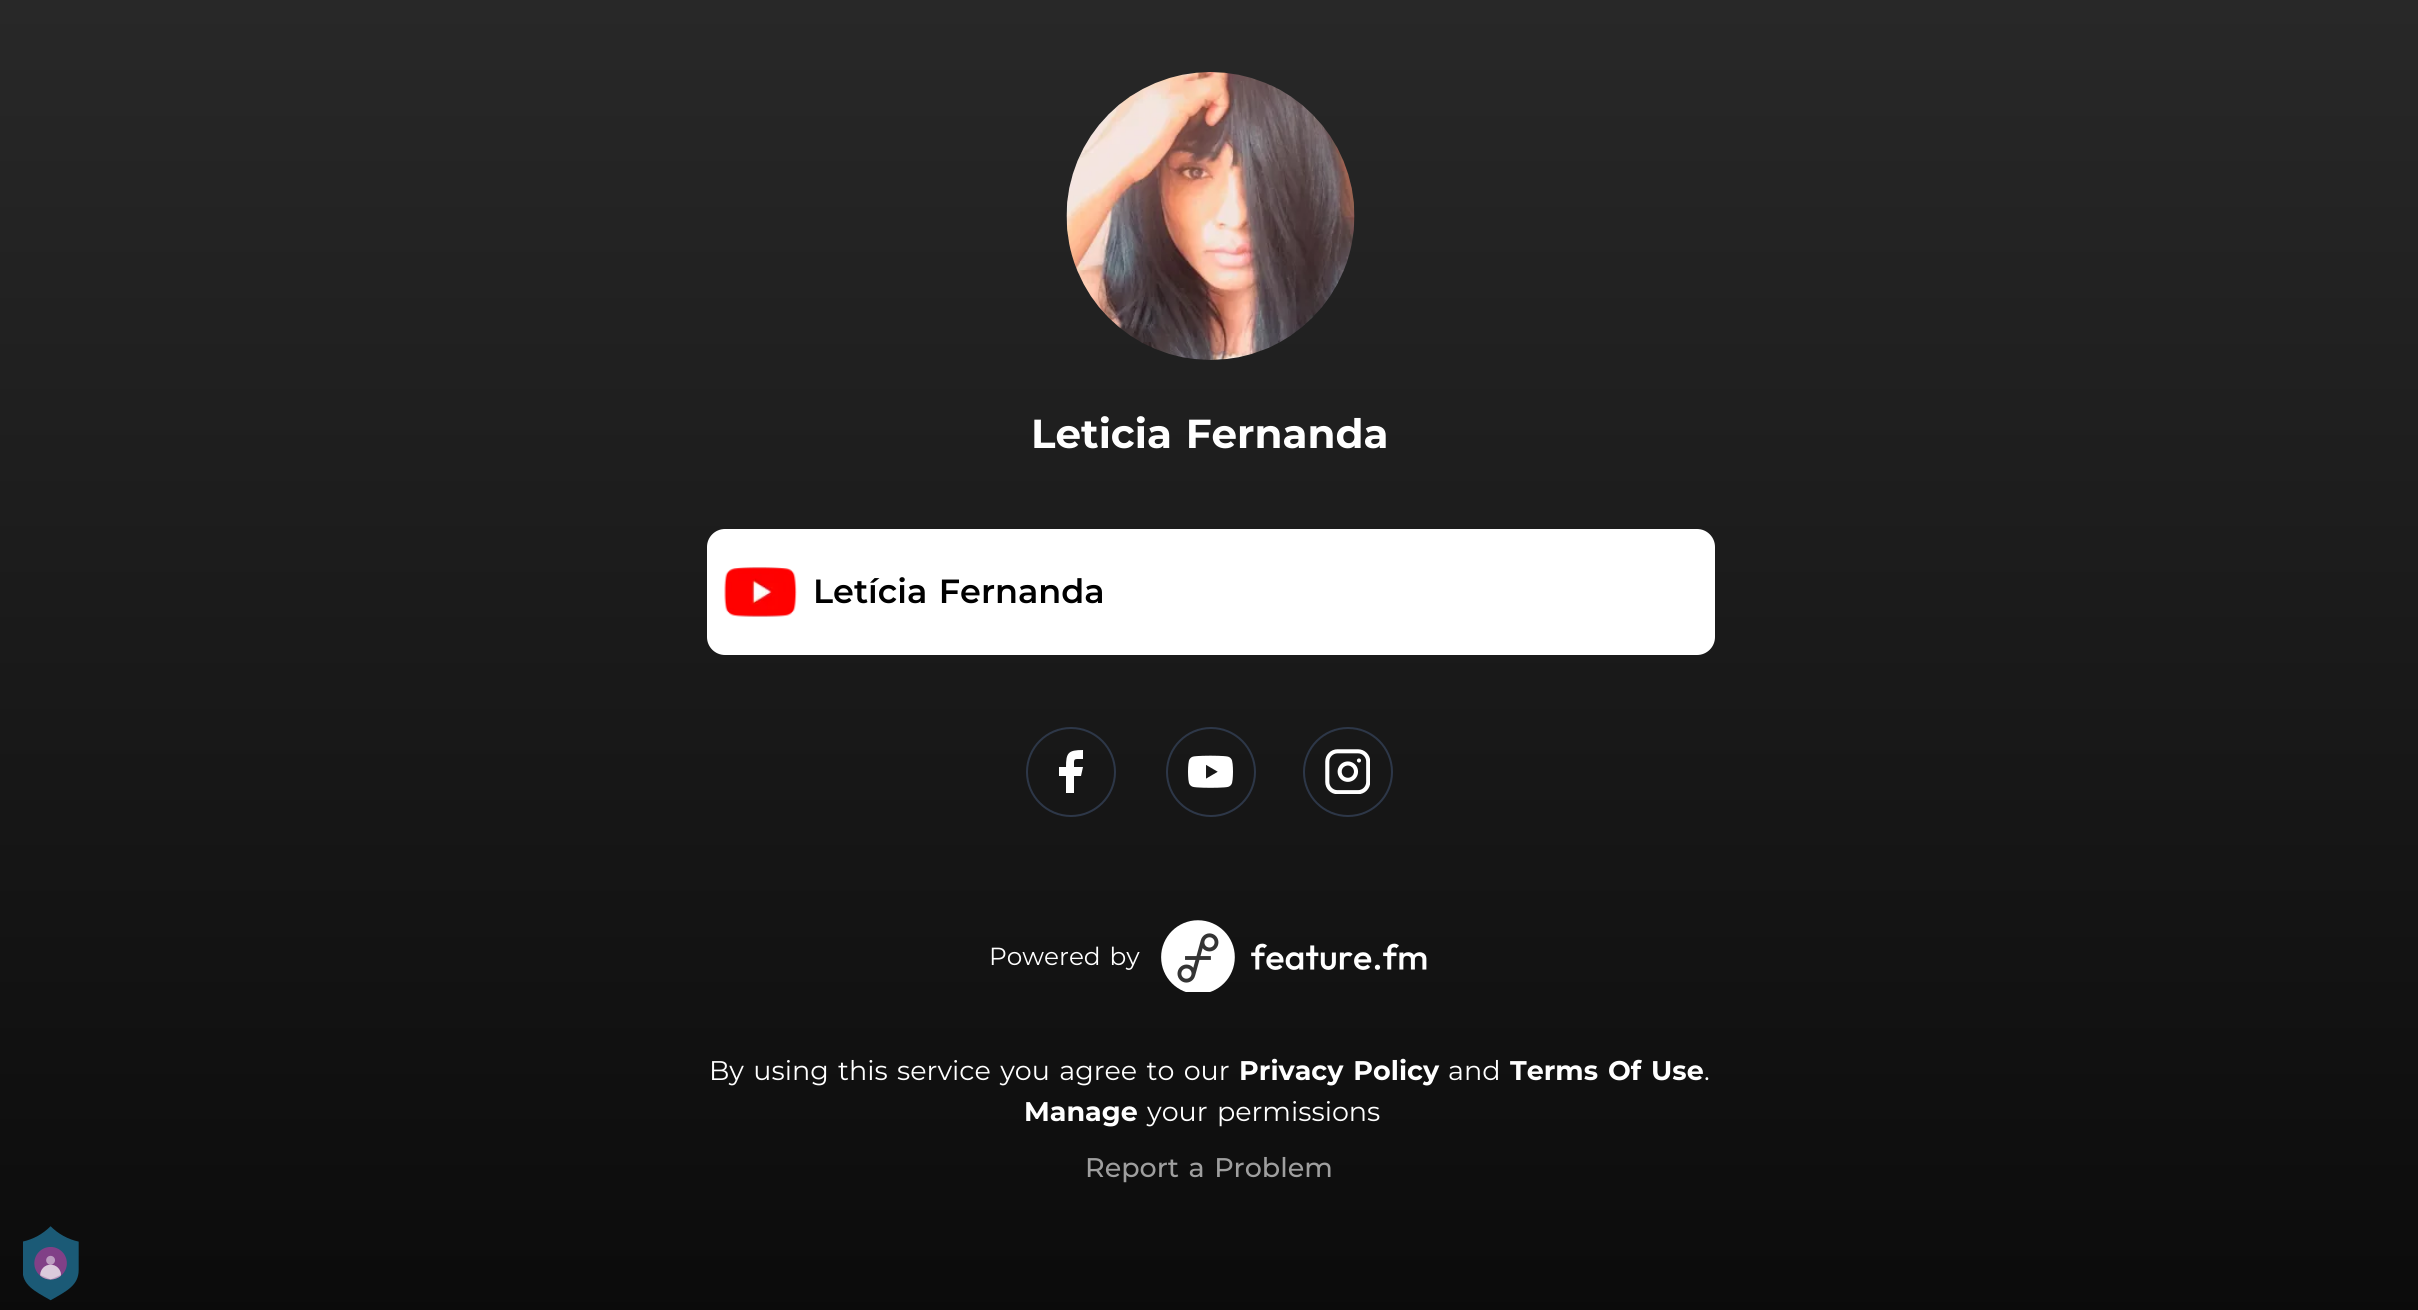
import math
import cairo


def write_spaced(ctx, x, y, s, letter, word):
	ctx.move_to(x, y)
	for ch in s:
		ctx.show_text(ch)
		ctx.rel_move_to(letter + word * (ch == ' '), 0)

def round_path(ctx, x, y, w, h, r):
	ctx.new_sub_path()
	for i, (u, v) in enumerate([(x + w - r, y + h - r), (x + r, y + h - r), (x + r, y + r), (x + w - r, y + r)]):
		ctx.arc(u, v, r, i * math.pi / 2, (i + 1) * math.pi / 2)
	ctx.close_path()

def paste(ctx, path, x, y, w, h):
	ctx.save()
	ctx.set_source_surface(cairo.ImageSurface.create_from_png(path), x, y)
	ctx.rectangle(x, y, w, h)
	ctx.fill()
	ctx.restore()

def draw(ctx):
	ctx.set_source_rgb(1, 1, 1)
	ctx.paint()
	gradient = cairo.LinearGradient(1209, 0, 1209, 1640)
	gradient.add_color_stop_rgba(0, 0.157, 0.157, 0.157, 1)
	gradient.add_color_stop_rgba(1, 0.016, 0.016, 0.016, 1)
	ctx.set_source(gradient)
	ctx.rectangle(0, 0, 2418, 1310)
	ctx.fill()
	paste(ctx, 'media/1.png', 1066, 72, 289, 288)
	ctx.select_font_face('Montserrat', cairo.FONT_SLANT_NORMAL, cairo.FONT_WEIGHT_BOLD)
	ctx.set_font_size(40.5)
	ctx.set_source_rgb(1, 1, 1)
	write_spaced(ctx, 1031, 448, 'Leticia Fernanda', 0, 2.25)
	round_path(ctx, 707, 529, 1008, 126, 18)
	ctx.fill()
	paste(ctx, 'media/2.png', 724, 567, 73, 50)
	ctx.select_font_face('Montserrat SemiBold')
	ctx.set_font_size(33.5)
	ctx.set_source_rgb(0, 0, 0)
	write_spaced(ctx, 813, 603, 'Letícia Fernanda', 0, 2.25)
	ctx.new_path()
	ctx.arc(1071, 772, 44, 0, 2 * math.pi)
	ctx.set_source_rgb(0.176, 0.216, 0.282)
	ctx.stroke()
	ctx.set_source_rgb(1, 1, 1)
	ctx.set_fill_rule(cairo.FILL_RULE_EVEN_ODD)
	ctx.new_path()
	ctx.move_to(1083, 750)
	ctx.curve_to(1068, 750, 1066, 753, 1066, 767)
	ctx.line_to(1059, 767)
	ctx.line_to(1059, 776)
	ctx.line_to(1066, 776)
	ctx.line_to(1066, 793)
	ctx.line_to(1074, 793)
	ctx.line_to(1074, 776)
	ctx.line_to(1081, 776)
	ctx.line_to(1083, 767)
	ctx.line_to(1074, 767)
	ctx.curve_to(1074, 758, 1073, 759, 1083, 759)
	ctx.close_path()
	ctx.fill()
	ctx.arc(1211, 772, 44, 0, 2 * math.pi)
	ctx.set_source_rgb(0.176, 0.216, 0.282)
	ctx.stroke()
	paste(ctx, 'media/3.png', 1188, 755, 45, 33)
	ctx.arc(1348, 772, 44, 0, 2 * math.pi)
	ctx.stroke()
	paste(ctx, 'media/4.png', 1325, 749, 45, 45)
	ctx.select_font_face('Montserrat')
	ctx.set_font_size(24.75)
	ctx.set_source_rgb(1, 1, 1)
	write_spaced(ctx, 989, 965, 'Powered by', 0, 2.25)
	paste(ctx, 'media/5.png', 1161, 920, 266, 72)
	ctx.set_font_size(27)
	write_spaced(ctx, 709, 1080, 'By using this service you agree to our', 0, 2.25)
	ctx.select_font_face('Montserrat', cairo.FONT_SLANT_NORMAL, cairo.FONT_WEIGHT_BOLD)
	write_spaced(ctx, 1239, 1080, 'Privacy Policy', 0, 2.25)
	ctx.select_font_face('Montserrat')
	ctx.move_to(1448, 1080)
	ctx.show_text('and')
	ctx.select_font_face('Montserrat', cairo.FONT_SLANT_NORMAL, cairo.FONT_WEIGHT_BOLD)
	write_spaced(ctx, 1510, 1080, 'Terms Of Use', 0, 2.25)
	ctx.select_font_face('Montserrat')
	ctx.move_to(1704, 1080)
	ctx.show_text('.')
	ctx.select_font_face('Montserrat', cairo.FONT_SLANT_NORMAL, cairo.FONT_WEIGHT_BOLD)
	ctx.move_to(1024, 1121)
	ctx.show_text('Manage')
	ctx.select_font_face('Montserrat')
	write_spaced(ctx, 1147, 1121, 'your permissions', 0, 2.25)
	ctx.select_font_face('Montserrat Medium')
	ctx.set_source_rgb(0.624, 0.624, 0.624)
	write_spaced(ctx, 1085, 1177, 'Report a Problem', 0, 2.25)
	paste(ctx, 'media/6.png', 23, 1226, 56, 75)


surface = cairo.ImageSurface(cairo.FORMAT_RGB24, 2418, 1310)
ctx = cairo.Context(surface)
options = cairo.FontOptions()
options.set_hint_metrics(cairo.HINT_METRICS_OFF)
options.set_hint_style(cairo.HINT_STYLE_NONE)
ctx.set_font_options(options)
ctx.set_miter_limit(4)
draw(ctx)
surface.write_to_png('image.png')
